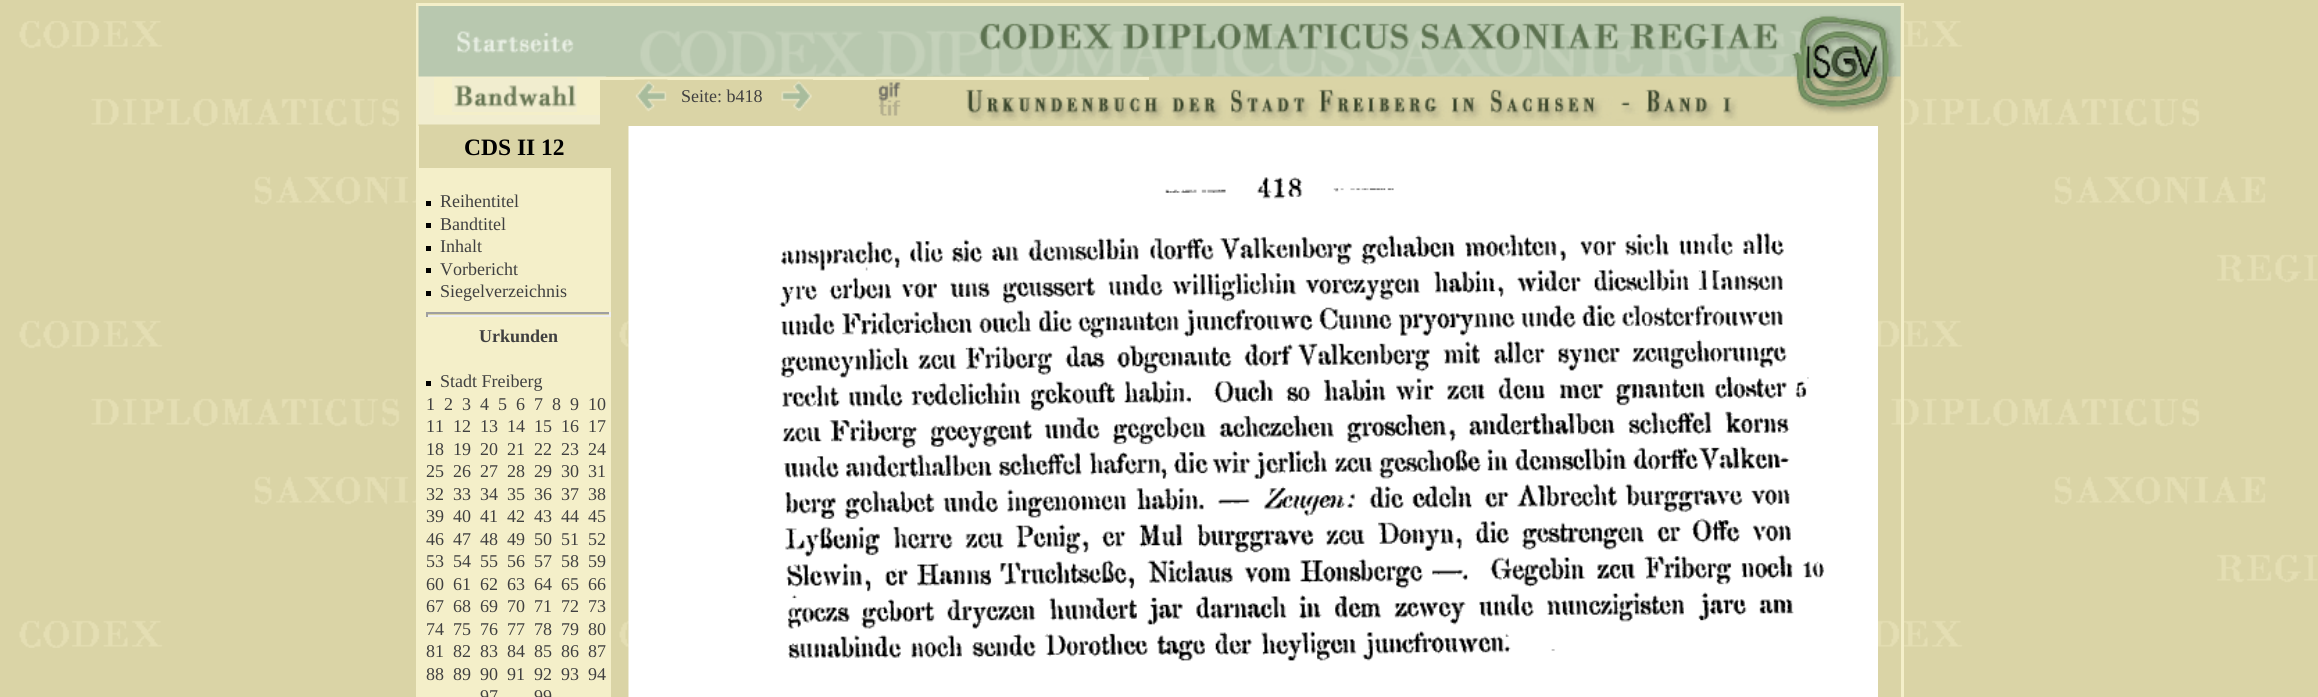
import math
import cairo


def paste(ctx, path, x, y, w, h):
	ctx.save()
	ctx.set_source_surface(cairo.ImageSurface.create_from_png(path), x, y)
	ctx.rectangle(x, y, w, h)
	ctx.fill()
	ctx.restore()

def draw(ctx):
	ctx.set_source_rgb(0.855, 0.831, 0.651)
	ctx.paint()
	paste(ctx, 'media/1.png', 19, 21, 2299, 627)
	ctx.rectangle(417.5, 4.5, 1485, 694)
	ctx.set_source_rgb(0.957, 0.937, 0.788)
	ctx.set_line_width(3)
	ctx.stroke()
	paste(ctx, 'media/2.png', 418, 6, 1483, 120)
	ctx.rectangle(434, 77, 715, 36)
	ctx.fill()
	ctx.rectangle(434, 113, 166, 2)
	ctx.fill()
	paste(ctx, 'media/3.png', 452, 78, 125, 34)
	ctx.set_source_rgb(0.855, 0.831, 0.651)
	ctx.rectangle(600, 80, 270, 45)
	ctx.fill()
	paste(ctx, 'media/4.png', 634, 79, 34, 33)
	ctx.select_font_face('Liberation Serif')
	ctx.set_font_size(18)
	ctx.set_source_rgb(0.251, 0.251, 0.251)
	ctx.move_to(681, 102)
	ctx.show_text('Seite: b418')
	paste(ctx, 'media/5.png', 780, 79, 33, 32)
	ctx.set_source_rgb(0.855, 0.831, 0.651)
	ctx.rectangle(870, 80, 279, 33)
	ctx.fill()
	paste(ctx, 'media/6.png', 876, 79, 29, 37)
	paste(ctx, 'media/7.png', 965, 89, 773, 32)
	ctx.set_source_rgb(0.957, 0.937, 0.788)
	ctx.rectangle(419, 168, 192, 529)
	ctx.fill()
	ctx.select_font_face('Liberation Serif', cairo.FONT_SLANT_NORMAL, cairo.FONT_WEIGHT_BOLD)
	ctx.set_font_size(23.5)
	ctx.set_source_rgb(0, 0, 0)
	ctx.move_to(464, 155)
	ctx.show_text('CDS II 12')
	ctx.rectangle(426, 201, 5, 5)
	ctx.fill()
	ctx.select_font_face('Liberation Serif')
	ctx.set_font_size(18)
	ctx.set_source_rgb(0.251, 0.251, 0.251)
	ctx.move_to(440, 207)
	ctx.show_text('Reihentitel')
	ctx.set_source_rgb(0, 0, 0)
	ctx.rectangle(426, 223, 5, 5)
	ctx.fill()
	ctx.set_source_rgb(0.251, 0.251, 0.251)
	ctx.move_to(440, 230)
	ctx.show_text('Bandtitel')
	ctx.set_source_rgb(0, 0, 0)
	ctx.rectangle(426, 246, 5, 5)
	ctx.fill()
	ctx.set_source_rgb(0.251, 0.251, 0.251)
	ctx.move_to(440, 252)
	ctx.show_text('Inhalt')
	ctx.set_source_rgb(0, 0, 0)
	ctx.rectangle(426, 268, 5, 5)
	ctx.fill()
	ctx.set_source_rgb(0.251, 0.251, 0.251)
	ctx.move_to(440, 275)
	ctx.show_text('Vorbericht')
	ctx.set_source_rgb(0, 0, 0)
	ctx.rectangle(426, 291, 5, 5)
	ctx.fill()
	ctx.set_source_rgb(0.251, 0.251, 0.251)
	ctx.move_to(440, 297)
	ctx.show_text('Siegelverzeichnis')
	ctx.set_source_rgb(0.855, 0.831, 0.651)
	ctx.rectangle(426, 314, 185, 1)
	ctx.fill()
	ctx.set_source_rgb(0.624, 0.624, 0.624)
	ctx.rectangle(426, 312, 185, 2)
	ctx.fill()
	ctx.set_source_rgb(0.933, 0.933, 0.933)
	ctx.rectangle(609, 312, 2, 5)
	ctx.rectangle(426, 315, 185, 2)
	ctx.fill()
	ctx.set_source_rgb(0.624, 0.624, 0.624)
	ctx.rectangle(426, 312, 2, 5)
	ctx.fill()
	ctx.select_font_face('Liberation Serif', cairo.FONT_SLANT_NORMAL, cairo.FONT_WEIGHT_BOLD)
	ctx.set_source_rgb(0.251, 0.251, 0.251)
	ctx.move_to(479, 342)
	ctx.show_text('Urkunden')
	ctx.set_source_rgb(0, 0, 0)
	ctx.rectangle(426, 381, 5, 5)
	ctx.fill()
	ctx.select_font_face('Liberation Serif')
	ctx.set_source_rgb(0.251, 0.251, 0.251)
	for x, y, s in [
		(440, 387, 'Stadt Freiberg'),
		(426, 410, '1'),
		(444, 410, '2'),
		(462, 410, '3'),
		(480, 410, '4'),
		(498, 410, '5'),
		(516, 410, '6'),
		(534, 410, '7'),
		(552, 410, '8'),
		(570, 410, '9'),
		(588, 410, '10'),
		(426, 432, '11'),
		(453, 432, '12'),
		(480, 432, '13'),
		(507, 432, '14'),
		(534, 432, '15'),
		(561, 432, '16'),
		(588, 432, '17'),
		(426, 455, '18'),
		(453, 455, '19'),
		(480, 455, '20'),
		(507, 455, '21'),
		(534, 455, '22'),
		(561, 455, '23'),
		(588, 455, '24'),
		(426, 477, '25'),
		(453, 477, '26'),
		(480, 477, '27'),
		(507, 477, '28'),
		(534, 477, '29'),
		(561, 477, '30'),
		(588, 477, '31'),
		(426, 500, '32'),
		(453, 500, '33'),
		(480, 500, '34'),
		(507, 500, '35'),
		(534, 500, '36'),
		(561, 500, '37'),
		(588, 500, '38'),
		(426, 522, '39'),
		(453, 522, '40'),
		(480, 522, '41'),
		(507, 522, '42'),
		(534, 522, '43'),
		(561, 522, '44'),
		(588, 522, '45'),
		(426, 545, '46'),
		(453, 545, '47'),
		(480, 545, '48'),
		(507, 545, '49'),
		(534, 545, '50'),
		(561, 545, '51'),
		(588, 545, '52'),
		(426, 567, '53'),
		(453, 567, '54'),
		(480, 567, '55'),
		(507, 567, '56'),
		(534, 567, '57'),
		(561, 567, '58'),
		(588, 567, '59'),
		(426, 590, '60'),
		(453, 590, '61'),
		(480, 590, '62'),
		(507, 590, '63'),
		(534, 590, '64'),
		(561, 590, '65'),
		(588, 590, '66'),
		(426, 612, '67'),
		(453, 612, '68'),
		(480, 612, '69'),
		(507, 612, '70'),
		(534, 612, '71'),
		(561, 612, '72'),
		(588, 612, '73'),
		(426, 635, '74'),
		(453, 635, '75'),
		(480, 635, '76'),
		(507, 635, '77'),
		(534, 635, '78'),
		(561, 635, '79'),
		(588, 635, '80'),
		(426, 657, '81'),
		(453, 657, '82'),
		(480, 657, '83'),
		(507, 657, '84'),
		(534, 657, '85'),
		(561, 657, '86'),
		(588, 657, '87'),
		(426, 680, '88'),
		(453, 680, '89'),
		(480, 680, '90'),
		(507, 680, '91'),
		(534, 680, '92'),
		(561, 680, '93'),
		(588, 680, '94'),
		(480, 702, '97'),
		(534, 702, '99'),
	]:
		ctx.move_to(x, y)
		ctx.show_text(s)
	paste(ctx, 'media/8.png', 628, 126, 1250, 571)


surface = cairo.ImageSurface(cairo.FORMAT_RGB24, 2318, 697)
ctx = cairo.Context(surface)
options = cairo.FontOptions()
options.set_hint_metrics(cairo.HINT_METRICS_OFF)
options.set_hint_style(cairo.HINT_STYLE_NONE)
ctx.set_font_options(options)
ctx.set_miter_limit(4)
draw(ctx)
surface.write_to_png('image.png')
